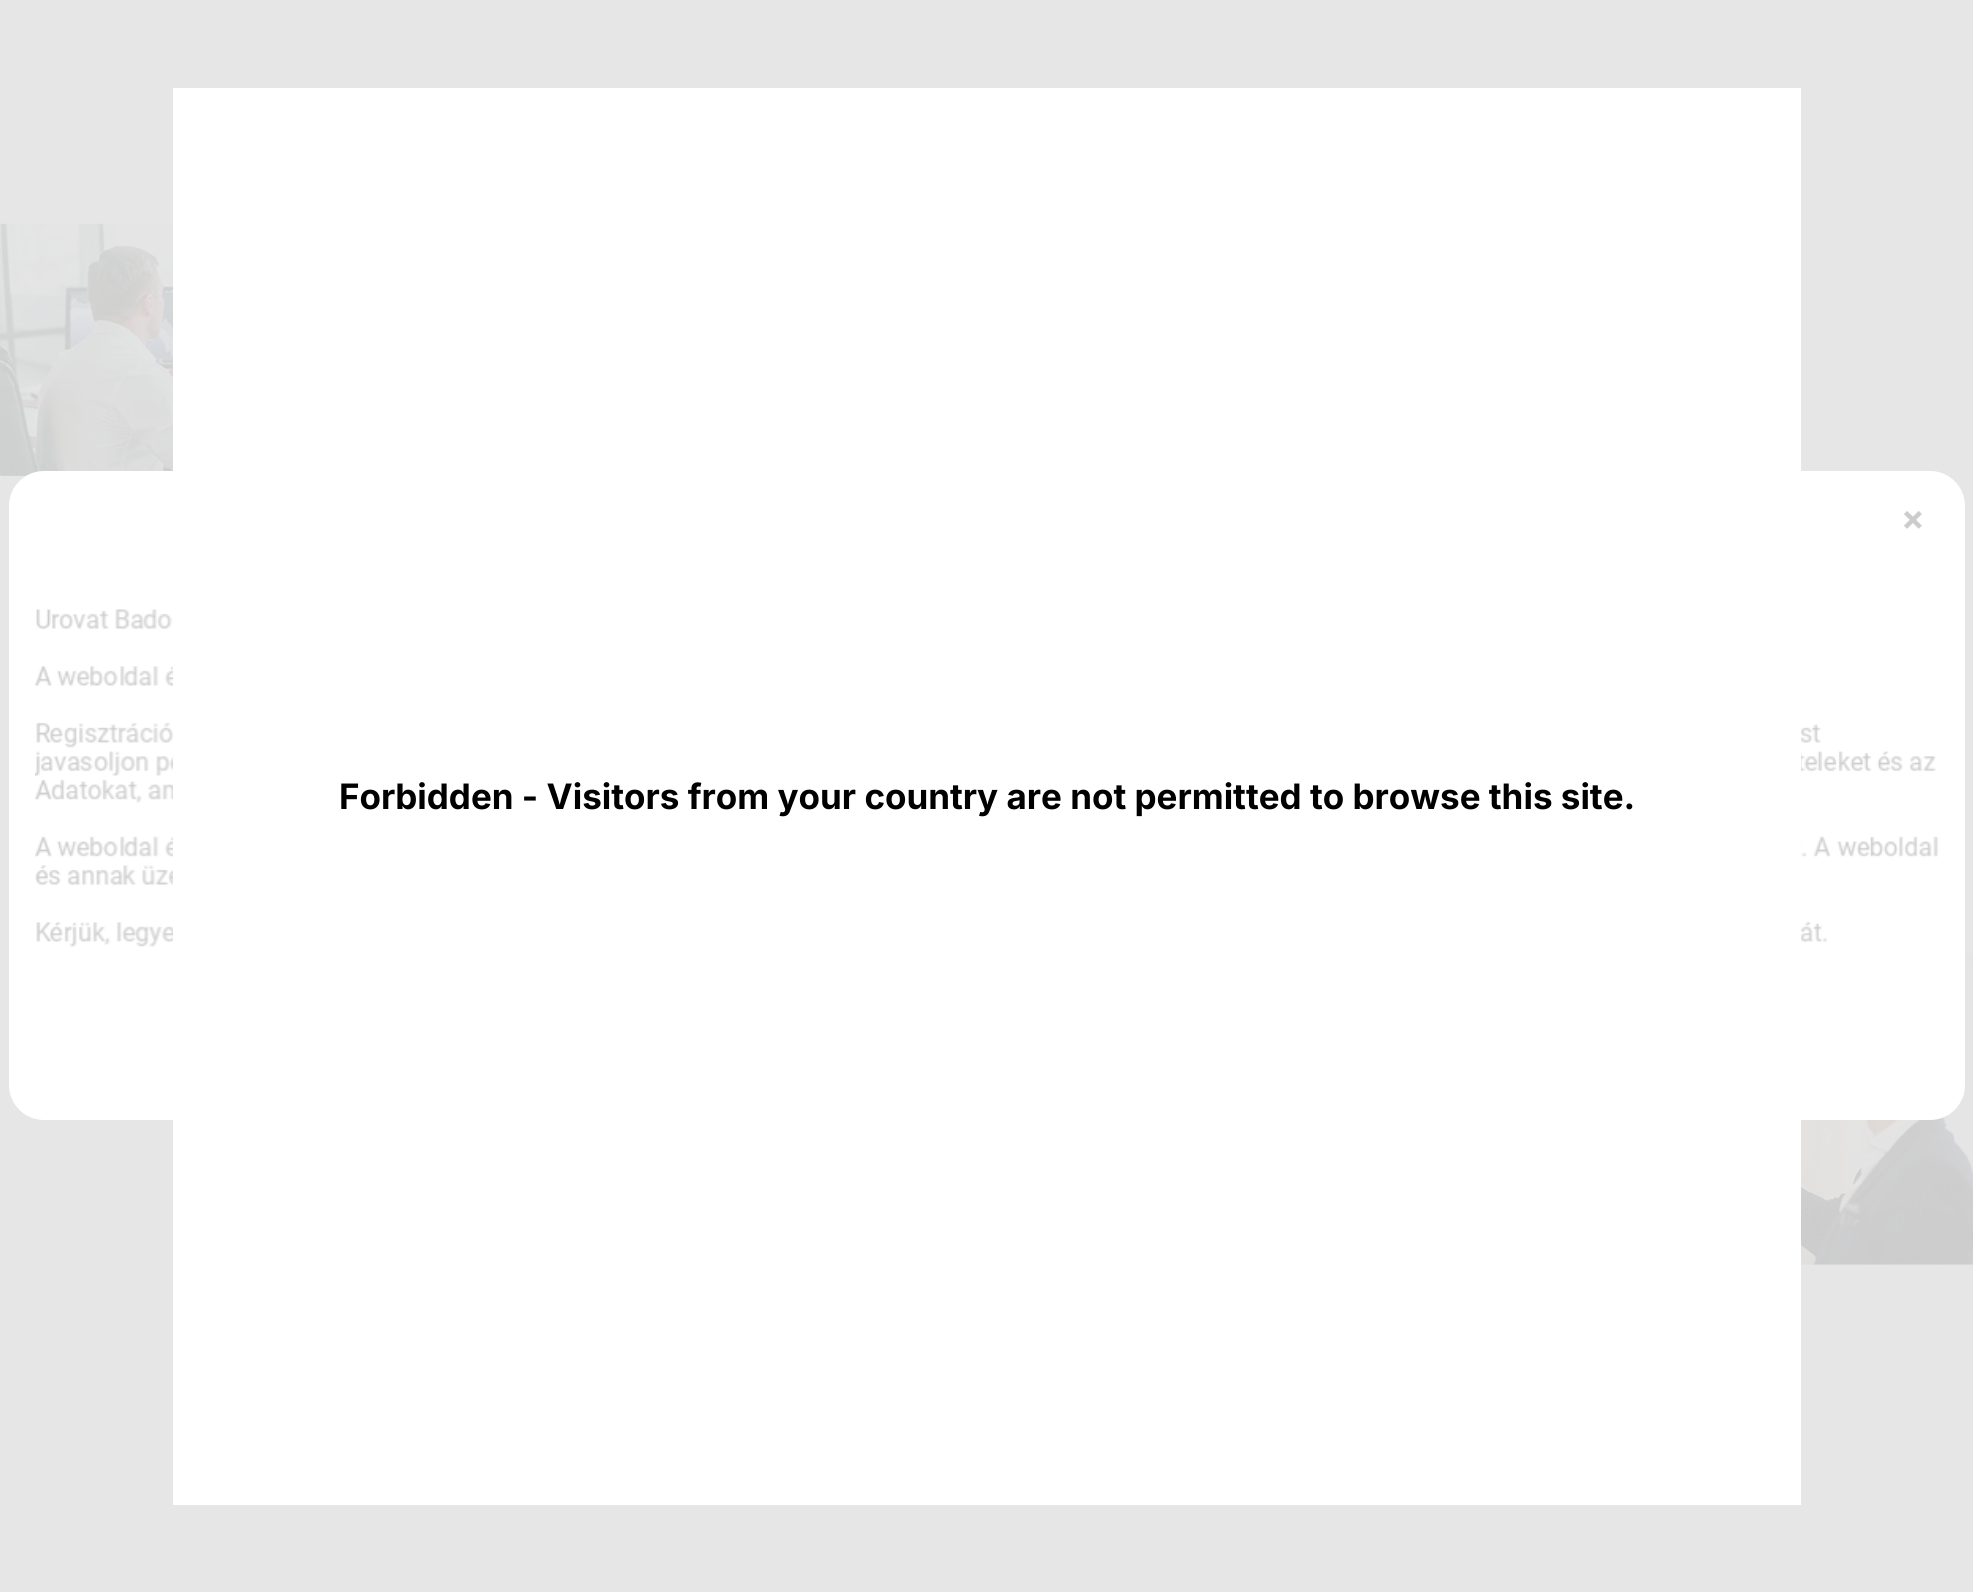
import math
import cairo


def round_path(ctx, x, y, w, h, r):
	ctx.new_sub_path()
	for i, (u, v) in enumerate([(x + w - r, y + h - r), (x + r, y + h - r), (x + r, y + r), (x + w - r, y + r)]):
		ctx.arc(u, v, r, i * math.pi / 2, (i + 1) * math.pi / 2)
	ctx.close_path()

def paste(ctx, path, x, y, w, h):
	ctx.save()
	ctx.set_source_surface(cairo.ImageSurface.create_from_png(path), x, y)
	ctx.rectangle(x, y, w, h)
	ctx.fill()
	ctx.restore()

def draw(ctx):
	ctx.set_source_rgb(0.902, 0.902, 0.902)
	ctx.paint()
	paste(ctx, 'media/1.png', 0, 223, 173, 253)
	paste(ctx, 'media/3.png', 1801, 953, 172, 312)
	ctx.set_source_rgb(1, 1, 1)
	round_path(ctx, 9, 471, 1956, 649, 35)
	ctx.fill()
	ctx.select_font_face('Inter', cairo.FONT_SLANT_NORMAL, cairo.FONT_WEIGHT_BOLD)
	ctx.set_font_size(35)
	ctx.set_source_rgb(0.8, 0.8, 0.8)
	ctx.move_to(1901, 530)
	ctx.show_text('×')
	paste(ctx, 'media/2.png', 35, 609, 1904, 339)
	ctx.set_source_rgb(1, 1, 1)
	ctx.rectangle(173, 88, 1628, 1417)
	ctx.fill()
	ctx.set_source_rgb(0, 0, 0)
	ctx.move_to(339, 809)
	ctx.show_text('Forbidden - Visitors from your country are not permitted to browse this site.')


surface = cairo.ImageSurface(cairo.FORMAT_RGB24, 1973, 1592)
ctx = cairo.Context(surface)
options = cairo.FontOptions()
options.set_hint_metrics(cairo.HINT_METRICS_OFF)
options.set_hint_style(cairo.HINT_STYLE_NONE)
ctx.set_font_options(options)
ctx.set_miter_limit(4)
draw(ctx)
surface.write_to_png('image.png')
